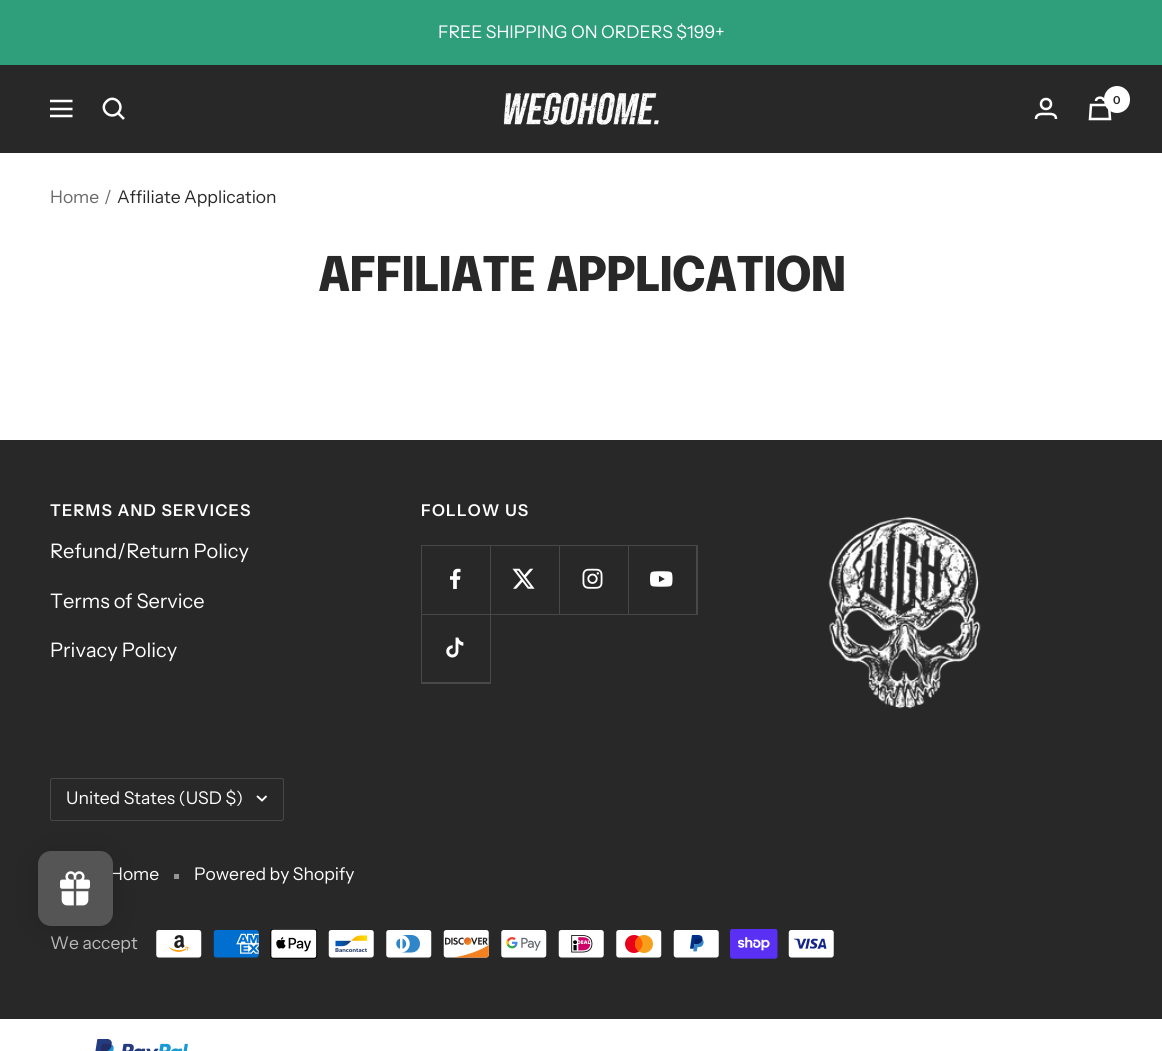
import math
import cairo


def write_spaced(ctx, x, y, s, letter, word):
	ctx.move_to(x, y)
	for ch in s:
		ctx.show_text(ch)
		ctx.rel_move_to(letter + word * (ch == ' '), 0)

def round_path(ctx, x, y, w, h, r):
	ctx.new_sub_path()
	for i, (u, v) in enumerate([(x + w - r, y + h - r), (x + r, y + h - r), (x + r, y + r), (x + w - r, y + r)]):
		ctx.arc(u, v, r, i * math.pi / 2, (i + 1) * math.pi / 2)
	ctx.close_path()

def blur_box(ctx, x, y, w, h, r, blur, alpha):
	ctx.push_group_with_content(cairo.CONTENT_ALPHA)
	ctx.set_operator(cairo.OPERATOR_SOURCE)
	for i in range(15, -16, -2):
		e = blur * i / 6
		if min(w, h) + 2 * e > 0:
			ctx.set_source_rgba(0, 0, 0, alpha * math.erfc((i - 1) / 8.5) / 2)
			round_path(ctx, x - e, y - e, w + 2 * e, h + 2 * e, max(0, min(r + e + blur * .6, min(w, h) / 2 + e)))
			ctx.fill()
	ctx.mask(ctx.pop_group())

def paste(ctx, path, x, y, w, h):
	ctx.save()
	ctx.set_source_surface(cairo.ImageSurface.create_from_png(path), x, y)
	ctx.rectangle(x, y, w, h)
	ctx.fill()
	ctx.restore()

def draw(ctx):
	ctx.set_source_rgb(1, 1, 1)
	ctx.paint()
	ctx.set_source_rgb(0.18, 0.62, 0.482)
	ctx.rectangle(0, 0, 1162, 65)
	ctx.fill()
	ctx.select_font_face('Instrument Sans')
	ctx.set_font_size(17.5)
	ctx.set_source_rgb(1, 1, 1)
	ctx.move_to(438, 38)
	ctx.show_text('FREE SHIPPING ON ORDERS $199+')
	ctx.set_source_rgb(0.157, 0.157, 0.157)
	ctx.rectangle(0, 65, 1162, 88)
	ctx.fill()
	ctx.new_path()
	ctx.move_to(50, 101)
	ctx.line_to(72.5, 101)
	ctx.move_to(50, 116)
	ctx.line_to(72.5, 116)
	ctx.close_path()
	ctx.move_to(50, 109)
	ctx.line_to(72.5, 109)
	ctx.close_path()
	ctx.set_source_rgb(1, 1, 1)
	ctx.set_line_width(2.5)
	ctx.stroke()
	ctx.new_path()
	ctx.move_to(118, 113)
	ctx.curve_to(125.5, 105, 114, 93.5, 106.5, 101.5)
	ctx.curve_to(98.5, 109, 110, 120.5, 118, 113)
	ctx.close_path()
	ctx.move_to(118, 113)
	ctx.line_to(124, 119)
	ctx.stroke()
	paste(ctx, 'media/1.png', 503, 92, 156, 33)
	ctx.arc(1046, 104, 5, 0, 2 * math.pi)
	ctx.stroke()
	ctx.new_path()
	ctx.move_to(1036, 119)
	ctx.curve_to(1036, 113, 1042.5, 114, 1046, 114)
	ctx.curve_to(1050, 114, 1056, 113, 1056, 119)
	ctx.stroke()
	ctx.new_path()
	ctx.move_to(1091, 105)
	ctx.line_to(1109, 105)
	ctx.line_to(1110, 119)
	ctx.line_to(1090, 119)
	ctx.close_path()
	ctx.move_to(1104, 101)
	ctx.curve_to(1104, 96.5, 1096, 96.5, 1096, 101)
	ctx.stroke()
	round_path(ctx, 1104, 86, 26, 27, 13)
	ctx.fill()
	ctx.select_font_face('Instrument Sans SemiBold')
	ctx.set_font_size(11)
	ctx.set_source_rgb(0.157, 0.157, 0.157)
	ctx.move_to(1113, 104)
	ctx.show_text('0')
	ctx.select_font_face('Instrument Sans')
	ctx.set_font_size(17.5)
	ctx.set_source_rgb(0.412, 0.412, 0.412)
	ctx.move_to(50, 203)
	ctx.show_text('Home')
	ctx.move_to(104, 203)
	ctx.show_text('/')
	ctx.set_source_rgb(0.157, 0.157, 0.157)
	ctx.move_to(117, 203)
	ctx.show_text('Affiliate Application')
	ctx.select_font_face('Epilogue ExtraBold')
	ctx.set_font_size(47.5)
	write_spaced(ctx, 318, 291, 'AFFILIATE APPLICATION', -1.25, 0)
	ctx.rectangle(0, 440, 1162, 579)
	ctx.fill()
	ctx.select_font_face('Instrument Sans SemiBold')
	ctx.set_font_size(16.25)
	ctx.set_source_rgb(1, 1, 1)
	write_spaced(ctx, 50, 516, 'TERMS AND SERVICES', 1.25, 0)
	ctx.select_font_face('Instrument Sans')
	ctx.set_font_size(20)
	for x, y, s in [
		(50, 558, 'Refund/Return Policy'),
		(50, 608, 'Terms of Service'),
		(50, 657, 'Privacy Policy'),
	]:
		ctx.move_to(x, y)
		ctx.show_text(s)
	ctx.select_font_face('Instrument Sans SemiBold')
	ctx.set_font_size(16.25)
	write_spaced(ctx, 421, 516, 'FOLLOW US', 1.25, 0)
	ctx.set_source_rgb(0.282, 0.282, 0.282)
	ctx.new_path()
	ctx.move_to(423, 614)
	ctx.line_to(423, 615)
	ctx.line_to(491, 615)
	ctx.line_to(491, 546)
	ctx.line_to(490, 546)
	ctx.line_to(490, 614)
	ctx.close_path()
	ctx.fill()
	ctx.new_path()
	ctx.move_to(421, 546)
	ctx.line_to(421, 615)
	ctx.line_to(490, 615)
	ctx.line_to(490, 614)
	ctx.line_to(421, 614)
	ctx.close_path()
	ctx.fill()
	ctx.new_path()
	ctx.move_to(423, 614)
	ctx.line_to(491, 614)
	ctx.line_to(491, 545)
	ctx.line_to(490, 545)
	ctx.line_to(490, 614)
	ctx.close_path()
	ctx.fill()
	ctx.rectangle(421, 545, 138, 1)
	ctx.fill()
	ctx.rectangle(421, 545, 1, 69)
	ctx.fill()
	paste(ctx, 'media/2.png', 450, 568, 11, 21)
	ctx.new_path()
	ctx.move_to(491, 614)
	ctx.line_to(491, 615)
	ctx.line_to(560, 615)
	ctx.line_to(560, 546)
	ctx.line_to(559, 546)
	ctx.line_to(559, 614)
	ctx.close_path()
	ctx.fill()
	ctx.new_path()
	ctx.move_to(491, 614)
	ctx.line_to(560, 614)
	ctx.line_to(560, 545)
	ctx.line_to(559, 545)
	ctx.line_to(559, 614)
	ctx.close_path()
	ctx.fill()
	paste(ctx, 'media/3.png', 512, 568, 23, 21)
	ctx.new_path()
	ctx.move_to(560, 614)
	ctx.line_to(560, 615)
	ctx.line_to(629, 615)
	ctx.line_to(629, 546)
	ctx.line_to(628, 546)
	ctx.line_to(628, 614)
	ctx.close_path()
	ctx.fill()
	ctx.new_path()
	ctx.move_to(560, 614)
	ctx.line_to(629, 614)
	ctx.line_to(629, 545)
	ctx.line_to(628, 545)
	ctx.line_to(628, 614)
	ctx.close_path()
	ctx.fill()
	ctx.rectangle(559, 545, 137, 1)
	ctx.fill()
	paste(ctx, 'media/4.png', 582, 568, 21, 21)
	ctx.new_path()
	ctx.move_to(629, 614)
	ctx.line_to(629, 615)
	ctx.line_to(698, 615)
	ctx.line_to(698, 546)
	ctx.line_to(696, 546)
	ctx.line_to(696, 614)
	ctx.close_path()
	ctx.fill()
	ctx.new_path()
	ctx.move_to(629, 614)
	ctx.line_to(698, 614)
	ctx.line_to(698, 545)
	ctx.line_to(696, 545)
	ctx.line_to(696, 614)
	ctx.close_path()
	ctx.fill()
	paste(ctx, 'media/5.png', 650, 571, 23, 16)
	ctx.new_path()
	ctx.move_to(423, 682)
	ctx.line_to(423, 684)
	ctx.line_to(491, 684)
	ctx.line_to(491, 615)
	ctx.line_to(490, 615)
	ctx.line_to(490, 682)
	ctx.close_path()
	ctx.fill()
	ctx.new_path()
	ctx.move_to(421, 615)
	ctx.line_to(421, 684)
	ctx.line_to(490, 684)
	ctx.line_to(490, 682)
	ctx.line_to(421, 682)
	ctx.close_path()
	ctx.fill()
	ctx.rectangle(421, 614, 1, 69)
	ctx.fill()
	paste(ctx, 'media/6.png', 446, 637, 18, 21)
	paste(ctx, 'media/7.png', 828, 516, 153, 193)
	round_path(ctx, 50.5, 778.5, 233, 42, 2)
	ctx.set_line_width(1)
	ctx.stroke()
	ctx.select_font_face('Instrument Sans')
	ctx.set_font_size(17.5)
	ctx.set_source_rgb(1, 1, 1)
	ctx.move_to(66, 804)
	ctx.show_text('United States (USD $)')
	ctx.new_path()
	ctx.move_to(257, 796)
	ctx.line_to(262, 800.5)
	ctx.line_to(266.5, 796)
	ctx.set_line_width(1.9)
	ctx.stroke()
	ctx.move_to(110, 880)
	ctx.show_text('Home')
	ctx.set_source_rgb(0.58, 0.58, 0.58)
	ctx.rectangle(174, 874, 5, 5)
	ctx.fill()
	ctx.set_source_rgb(1, 1, 1)
	ctx.move_to(194, 880)
	ctx.show_text('Powered by Shopify')
	ctx.set_source_rgb(0.749, 0.749, 0.749)
	ctx.move_to(50, 949)
	ctx.show_text('We accept')
	paste(ctx, 'media/8.png', 156, 930, 46, 28)
	paste(ctx, 'media/9.png', 213, 930, 46, 28)
	paste(ctx, 'media/10.png', 270, 929, 48, 30)
	paste(ctx, 'media/11.png', 328, 930, 46, 28)
	paste(ctx, 'media/12.png', 386, 930, 46, 28)
	paste(ctx, 'media/13.png', 443, 930, 46, 28)
	paste(ctx, 'media/14.png', 501, 930, 46, 28)
	paste(ctx, 'media/15.png', 558, 930, 46, 28)
	paste(ctx, 'media/16.png', 616, 930, 46, 28)
	paste(ctx, 'media/17.png', 673, 930, 46, 28)
	paste(ctx, 'media/18.png', 730, 929, 48, 30)
	paste(ctx, 'media/19.png', 788, 930, 46, 28)
	ctx.set_source_rgb(0, 0, 0)
	blur_box(ctx, 38, 854, 75, 75, 13, 19, 0.15)
	ctx.set_source_rgb(0.333, 0.333, 0.333)
	round_path(ctx, 38, 851, 75, 75, 13)
	ctx.fill()
	paste(ctx, 'media/20.png', 60, 871, 30, 35)
	paste(ctx, 'media/21.png', 95, 1039, 93, 12)


surface = cairo.ImageSurface(cairo.FORMAT_RGB24, 1162, 1051)
ctx = cairo.Context(surface)
options = cairo.FontOptions()
options.set_hint_metrics(cairo.HINT_METRICS_OFF)
options.set_hint_style(cairo.HINT_STYLE_NONE)
ctx.set_font_options(options)
ctx.set_miter_limit(4)
draw(ctx)
surface.write_to_png('image.png')
